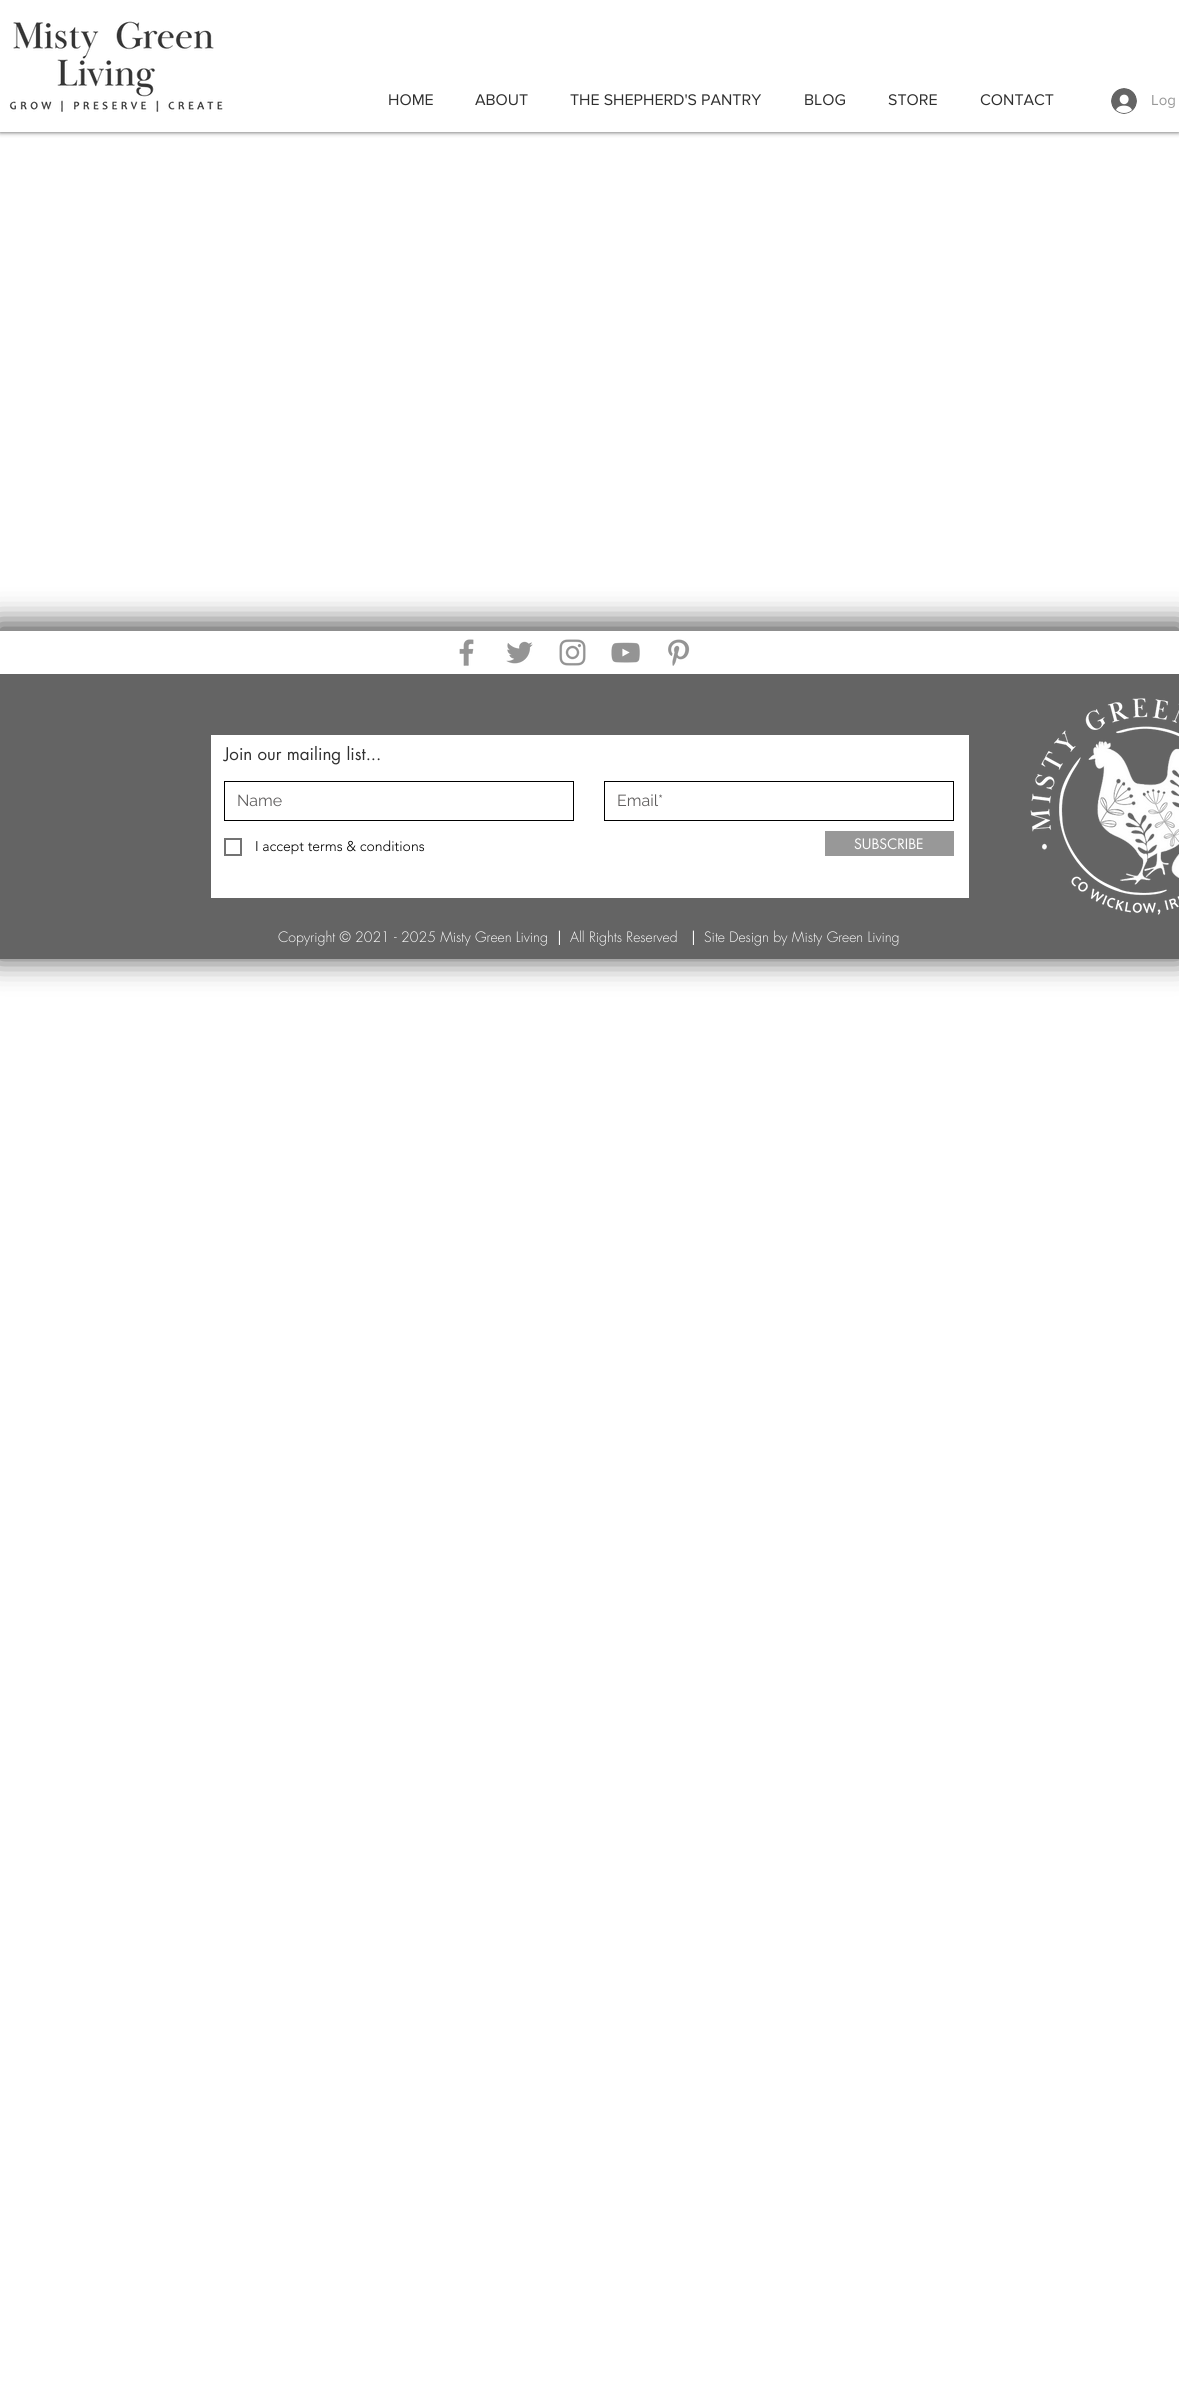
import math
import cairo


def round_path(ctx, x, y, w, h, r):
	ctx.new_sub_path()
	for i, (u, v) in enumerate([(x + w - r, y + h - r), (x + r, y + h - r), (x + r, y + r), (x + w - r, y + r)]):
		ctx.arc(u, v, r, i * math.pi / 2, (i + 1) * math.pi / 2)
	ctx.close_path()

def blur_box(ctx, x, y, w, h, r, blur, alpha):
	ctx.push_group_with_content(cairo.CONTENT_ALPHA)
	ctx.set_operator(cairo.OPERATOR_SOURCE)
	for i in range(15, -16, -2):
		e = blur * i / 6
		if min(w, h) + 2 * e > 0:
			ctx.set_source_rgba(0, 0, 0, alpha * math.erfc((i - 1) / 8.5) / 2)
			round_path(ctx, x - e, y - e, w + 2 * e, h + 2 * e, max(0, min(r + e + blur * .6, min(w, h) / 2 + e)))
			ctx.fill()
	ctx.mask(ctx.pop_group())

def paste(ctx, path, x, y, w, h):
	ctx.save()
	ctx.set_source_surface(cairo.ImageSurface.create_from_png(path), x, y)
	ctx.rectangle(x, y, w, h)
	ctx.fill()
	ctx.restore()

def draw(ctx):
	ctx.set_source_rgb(1, 1, 1)
	ctx.paint()
	ctx.set_source_rgb(0, 0, 0)
	blur_box(ctx, 0, 0, 1179, 132, 0, 2.5, 0.7)
	ctx.set_source_rgb(1, 1, 1)
	ctx.rectangle(0, 0, 1179, 132)
	ctx.fill()
	paste(ctx, 'media/1.png', 9, 21, 214, 91)
	ctx.select_font_face('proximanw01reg')
	ctx.set_font_size(16)
	ctx.set_source_rgb(0.188, 0.188, 0.188)
	for x, y, s in [
		(388, 105, 'HOME'),
		(475, 105, 'ABOUT'),
		(570, 105, 'THE SHEPHERD\'S PANTRY'),
		(804, 105, 'BLOG'),
		(888, 105, 'STORE'),
		(980, 105, 'CONTACT'),
	]:
		ctx.move_to(x, y)
		ctx.show_text(s)
	paste(ctx, 'media/2.png', 1111, 88, 26, 26)
	ctx.set_font_size(15)
	ctx.set_source_rgb(0.596, 0.596, 0.596)
	ctx.move_to(1151, 105)
	ctx.show_text('Log')
	ctx.set_source_rgb(0, 0, 0)
	blur_box(ctx, -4, 624, 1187, 335, 0, 15, 0.7)
	ctx.set_source_rgb(0.392, 0.392, 0.392)
	ctx.rectangle(0, 674, 1179, 285)
	ctx.fill()
	ctx.set_source_rgb(1, 1, 1)
	ctx.rectangle(0, 631, 1179, 43)
	ctx.fill()
	paste(ctx, 'media/3.png', 459, 639, 15, 27)
	paste(ctx, 'media/4.png', 506, 641, 27, 23)
	paste(ctx, 'media/5.png', 559, 639, 27, 27)
	paste(ctx, 'media/6.png', 611, 642, 29, 21)
	paste(ctx, 'media/7.png', 668, 639, 22, 27)
	ctx.rectangle(211, 735, 758, 163)
	ctx.fill()
	ctx.select_font_face('futura')
	ctx.set_font_size(17)
	ctx.set_source_rgb(0.188, 0.188, 0.188)
	ctx.move_to(224, 760)
	ctx.show_text('Join our mailing list...')
	ctx.rectangle(224.5, 781.5, 349, 39)
	ctx.set_source_rgb(0, 0, 0)
	ctx.set_line_width(1)
	ctx.stroke()
	ctx.select_font_face('Raleway')
	ctx.set_font_size(16)
	ctx.set_source_rgb(0.376, 0.369, 0.369)
	ctx.move_to(237, 806)
	ctx.show_text('Name')
	ctx.rectangle(604.5, 781.5, 349, 39)
	ctx.set_source_rgb(0, 0, 0)
	ctx.stroke()
	ctx.set_source_rgb(0.376, 0.369, 0.369)
	ctx.move_to(617, 806)
	ctx.show_text('Email*')
	ctx.rectangle(225, 839, 16, 16)
	ctx.set_source_rgb(0.451, 0.451, 0.451)
	ctx.set_line_width(2)
	ctx.stroke()
	ctx.select_font_face('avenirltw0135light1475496 Light')
	ctx.set_font_size(14)
	ctx.set_source_rgb(0, 0, 0)
	ctx.move_to(255, 851)
	ctx.show_text('I accept terms & conditions')
	ctx.set_source_rgb(0.596, 0.596, 0.596)
	ctx.rectangle(825, 831, 129, 25)
	ctx.fill()
	ctx.select_font_face('futura')
	ctx.set_source_rgb(1, 1, 1)
	ctx.move_to(854, 849)
	ctx.show_text('SUBSCRIBE')
	paste(ctx, 'media/8.png', 1030, 698, 149, 217)
	ctx.select_font_face('futura Light')
	ctx.move_to(278, 942)
	ctx.show_text('Copyright © 2021 - 2025 Misty Green Living')
	ctx.select_font_face('futura', cairo.FONT_SLANT_NORMAL, cairo.FONT_WEIGHT_BOLD)
	ctx.move_to(557, 942)
	ctx.show_text('|')
	ctx.select_font_face('futura Light')
	ctx.move_to(570, 942)
	ctx.show_text('All Rights Reserved')
	ctx.select_font_face('futura', cairo.FONT_SLANT_NORMAL, cairo.FONT_WEIGHT_BOLD)
	ctx.move_to(691, 942)
	ctx.show_text('|')
	ctx.select_font_face('futura Light')
	ctx.move_to(704, 942)
	ctx.show_text('Site Design by Misty Green Living')


surface = cairo.ImageSurface(cairo.FORMAT_RGB24, 1179, 2388)
ctx = cairo.Context(surface)
options = cairo.FontOptions()
options.set_hint_metrics(cairo.HINT_METRICS_OFF)
options.set_hint_style(cairo.HINT_STYLE_NONE)
ctx.set_font_options(options)
ctx.set_miter_limit(4)
draw(ctx)
surface.write_to_png('image.png')
